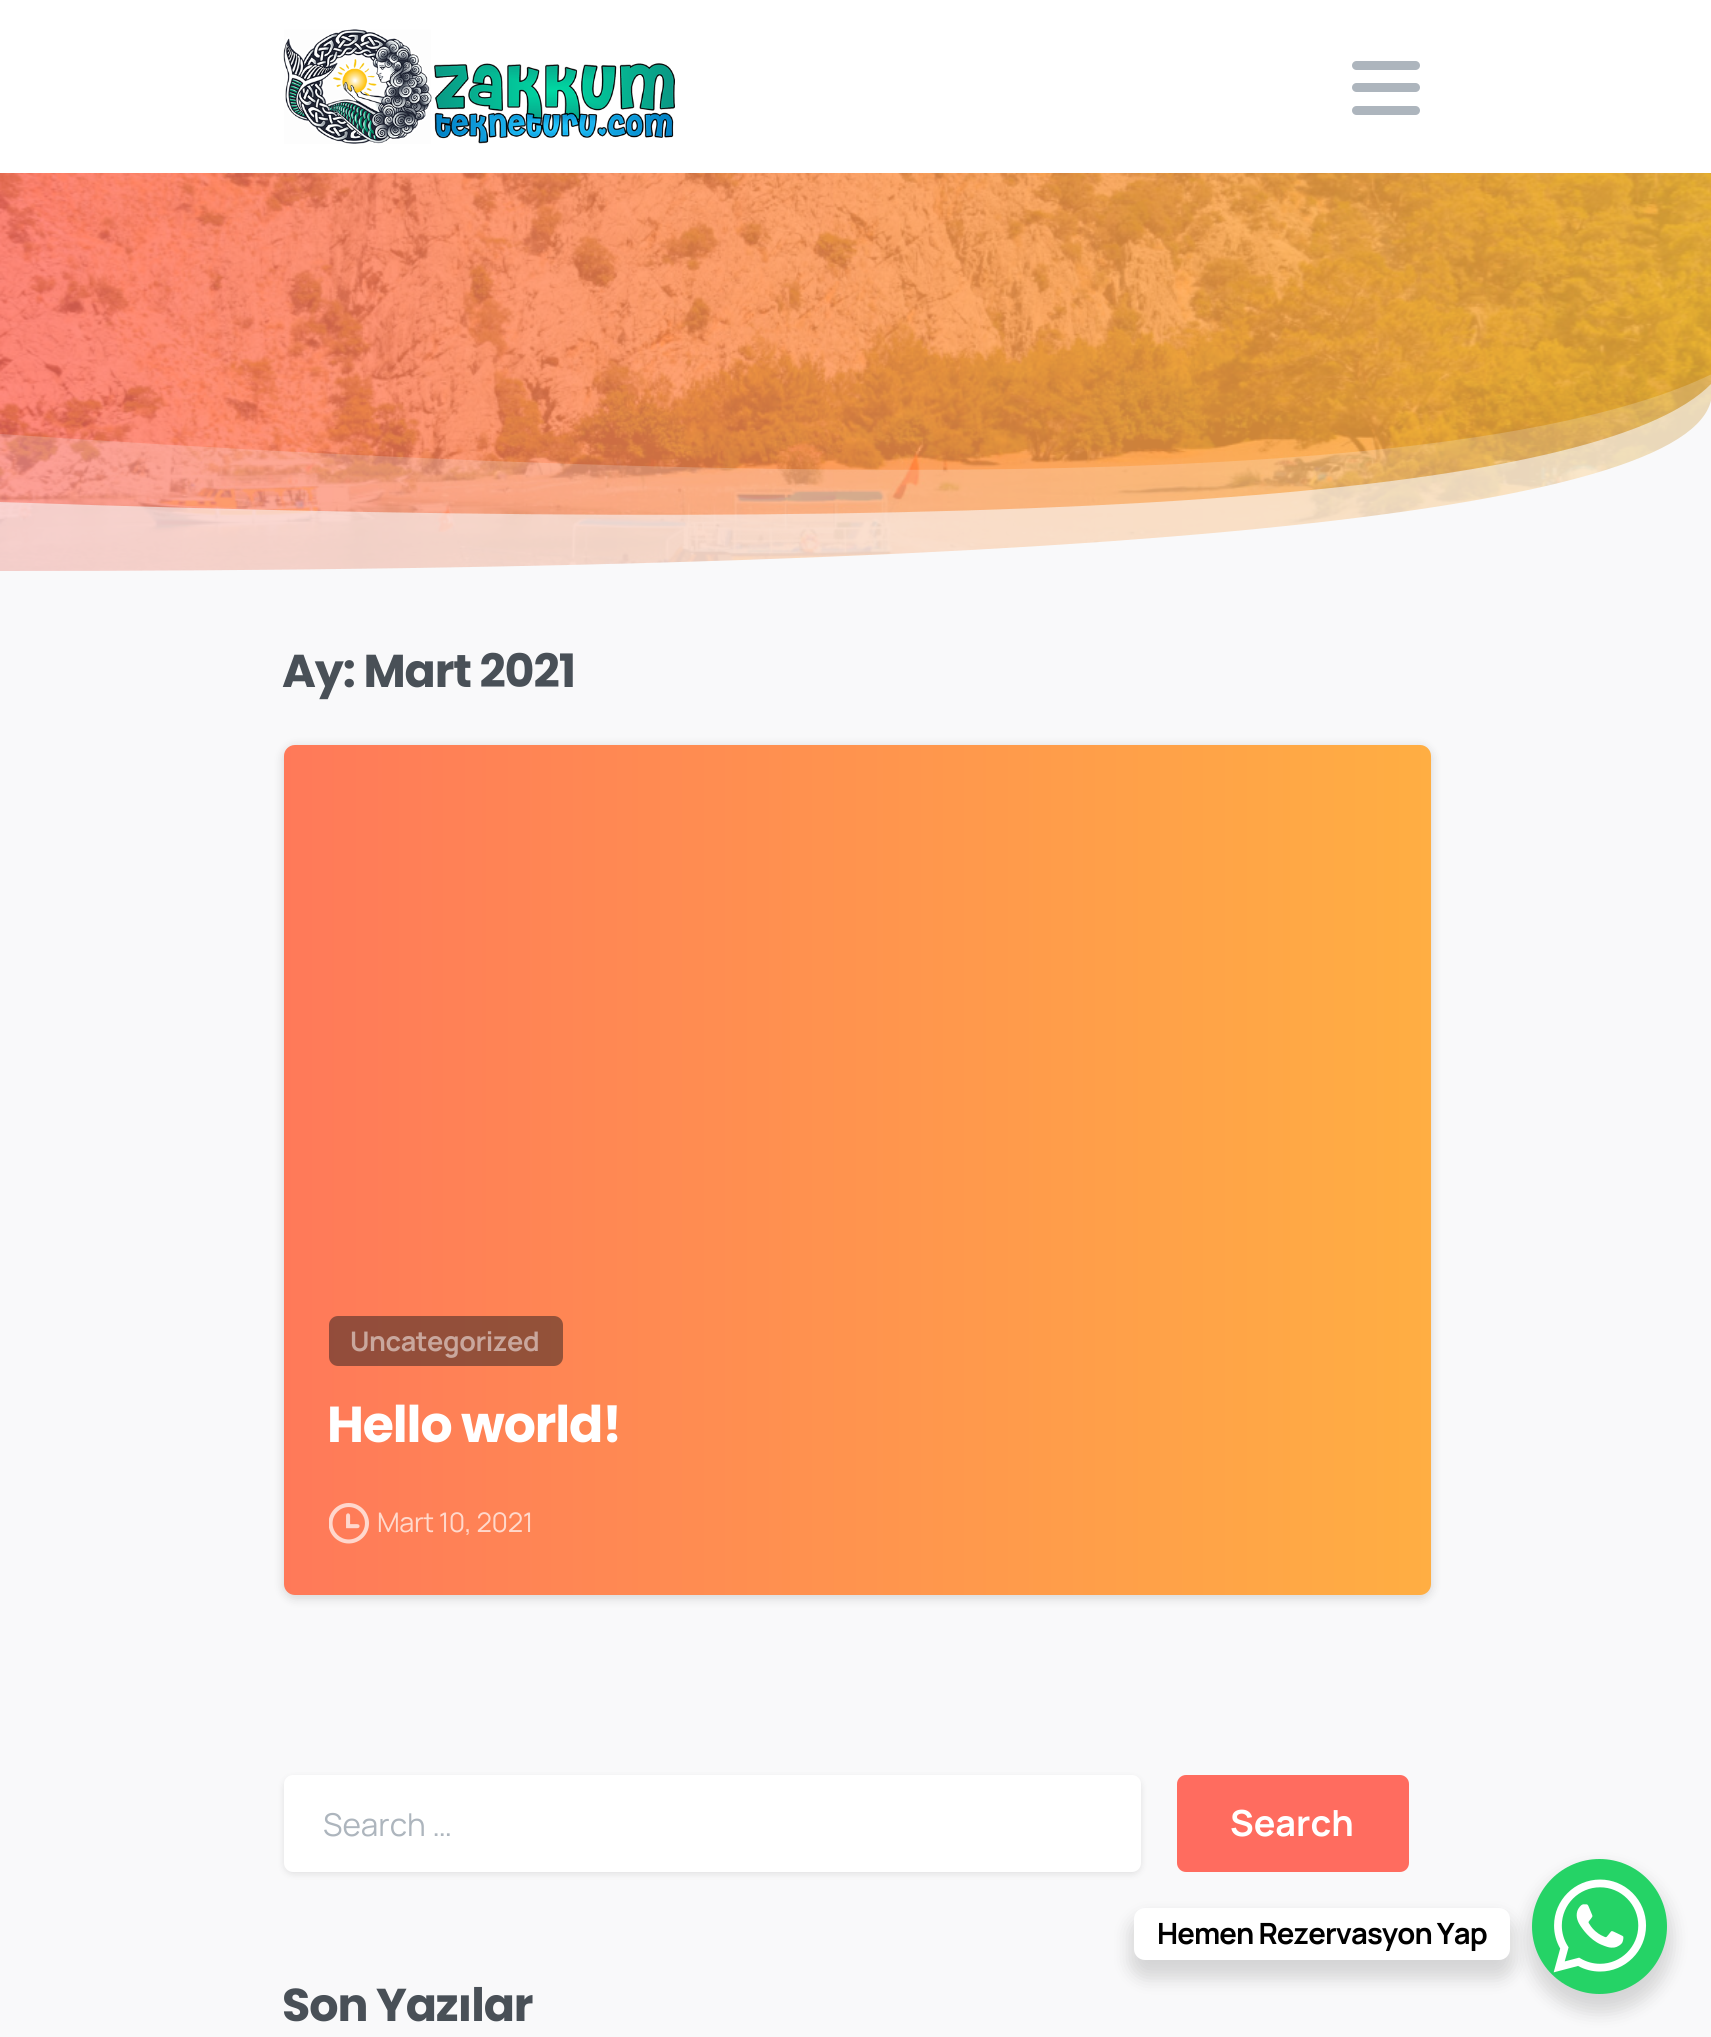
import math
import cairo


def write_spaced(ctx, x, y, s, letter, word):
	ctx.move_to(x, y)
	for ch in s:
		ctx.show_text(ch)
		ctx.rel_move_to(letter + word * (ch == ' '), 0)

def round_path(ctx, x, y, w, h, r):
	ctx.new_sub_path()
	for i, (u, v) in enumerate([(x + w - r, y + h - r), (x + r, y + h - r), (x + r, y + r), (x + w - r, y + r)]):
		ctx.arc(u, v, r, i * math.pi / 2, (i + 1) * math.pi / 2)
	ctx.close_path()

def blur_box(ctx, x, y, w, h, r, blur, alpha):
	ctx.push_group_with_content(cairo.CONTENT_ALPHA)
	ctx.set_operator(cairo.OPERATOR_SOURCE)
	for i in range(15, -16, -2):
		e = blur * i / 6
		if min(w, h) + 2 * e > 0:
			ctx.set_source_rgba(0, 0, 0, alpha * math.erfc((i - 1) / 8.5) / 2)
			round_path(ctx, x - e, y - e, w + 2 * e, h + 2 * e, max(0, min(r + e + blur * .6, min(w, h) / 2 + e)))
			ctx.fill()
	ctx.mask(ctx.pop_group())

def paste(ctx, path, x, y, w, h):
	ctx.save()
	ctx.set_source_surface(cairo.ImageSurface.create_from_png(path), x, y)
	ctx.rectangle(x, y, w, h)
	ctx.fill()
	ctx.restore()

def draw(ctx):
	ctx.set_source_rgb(1, 1, 1)
	ctx.paint()
	paste(ctx, 'media/1.png', 283, 29, 392, 115)
	ctx.set_source_rgb(0.678, 0.71, 0.741)
	round_path(ctx, 1352, 83, 68, 9, 4.5)
	ctx.fill()
	round_path(ctx, 1352, 61, 68, 9, 4.5)
	ctx.fill()
	round_path(ctx, 1352, 106, 68, 9, 4.5)
	ctx.fill()
	gradient = cairo.LinearGradient(0, 1019, 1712, 1019)
	gradient.add_color_stop_rgba(0, 1, 0.424, 0.373, 1)
	gradient.add_color_stop_rgba(1, 1, 0.733, 0.239, 1)
	ctx.set_source(gradient)
	ctx.rectangle(0, 173, 1711, 398)
	ctx.fill()
	paste(ctx, 'media/2.png', 0, 173, 1711, 398)
	ctx.set_source_rgba(0.973, 0.976, 0.98, 0.2)
	ctx.new_path()
	ctx.move_to(0, 598)
	ctx.line_to(0, 434)
	ctx.curve_to(928, 497, 1499, 477, 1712, 374)
	ctx.line_to(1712, 598)
	ctx.close_path()
	ctx.fill()
	ctx.set_source_rgba(0.973, 0.976, 0.98, 0.6)
	ctx.new_path()
	ctx.move_to(0, 598)
	ctx.line_to(0, 502)
	ctx.curve_to(1031, 538, 1602, 498, 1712, 383)
	ctx.line_to(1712, 598)
	ctx.close_path()
	ctx.fill()
	ctx.set_source_rgb(0.973, 0.976, 0.98)
	ctx.new_path()
	ctx.move_to(0, 598)
	ctx.line_to(0, 571)
	ctx.curve_to(1142, 571, 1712, 511, 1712, 392)
	ctx.line_to(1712, 598)
	ctx.close_path()
	ctx.fill()
	ctx.rectangle(0, 598, 1711, 1439)
	ctx.fill()
	ctx.select_font_face('Poppins', cairo.FONT_SLANT_NORMAL, cairo.FONT_WEIGHT_BOLD)
	ctx.set_font_size(46)
	ctx.set_source_rgb(0.286, 0.314, 0.341)
	write_spaced(ctx, 282, 687, 'Ay: Mart 2021', -1.1, 0)
	ctx.set_source_rgb(0, 0, 0)
	blur_box(ctx, 284, 747, 1147, 851, 11, 5.5, 0.15)
	gradient = cairo.LinearGradient(0, 1019, 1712, 1019)
	gradient.add_color_stop_rgba(0, 1, 0.424, 0.373, 1)
	gradient.add_color_stop_rgba(1, 1, 0.733, 0.239, 1)
	ctx.set_source(gradient)
	round_path(ctx, 284, 745, 1147, 850, 11)
	ctx.fill()
	ctx.set_source_rgba(0.157, 0.118, 0.118, 0.5)
	round_path(ctx, 329, 1316, 234, 50, 9)
	ctx.fill()
	ctx.select_font_face('Manrope', cairo.FONT_SLANT_NORMAL, cairo.FONT_WEIGHT_BOLD)
	ctx.set_font_size(27)
	ctx.set_source_rgb(0.788, 0.655, 0.616)
	write_spaced(ctx, 350, 1351, 'Uncategorized', -0.4, 0)
	ctx.select_font_face('Poppins', cairo.FONT_SLANT_NORMAL, cairo.FONT_WEIGHT_BOLD)
	ctx.set_font_size(50.5)
	ctx.set_source_rgb(1, 1, 1)
	write_spaced(ctx, 327, 1442, 'Hello world!', -1.1, 0)
	paste(ctx, 'media/3.png', 329, 1503, 40, 41)
	ctx.select_font_face('Manrope')
	ctx.set_font_size(27)
	ctx.set_source_rgb(1, 0.851, 0.8)
	write_spaced(ctx, 377, 1532, 'Mart 10, 2021', -0.4, 0)
	ctx.set_source_rgb(0, 0, 0)
	blur_box(ctx, 284, 1778, 857, 96, 9, 3.5, 0.1)
	ctx.set_source_rgb(1, 1, 1)
	round_path(ctx, 284, 1775, 857, 97, 9)
	ctx.fill()
	ctx.set_font_size(31.5)
	ctx.set_source_rgb(0.678, 0.71, 0.741)
	ctx.move_to(323, 1836)
	ctx.show_text('Search …')
	ctx.set_source_rgb(1, 0.424, 0.373)
	round_path(ctx, 1177, 1775, 232, 97, 9)
	ctx.fill()
	ctx.select_font_face('Manrope', cairo.FONT_SLANT_NORMAL, cairo.FONT_WEIGHT_BOLD)
	ctx.set_font_size(36)
	ctx.set_source_rgb(1, 1, 1)
	ctx.move_to(1230, 1836)
	ctx.show_text('Search')
	ctx.select_font_face('Poppins', cairo.FONT_SLANT_NORMAL, cairo.FONT_WEIGHT_BOLD)
	ctx.set_font_size(46)
	ctx.set_source_rgb(0.286, 0.314, 0.341)
	write_spaced(ctx, 282, 2021, 'Son Yazılar', -1.1, 0)
	ctx.set_source_rgb(0, 0, 0)
	blur_box(ctx, 1528, 1868, 144, 144, 72, 9, 0.15)
	ctx.set_source_rgb(0.145, 0.827, 0.4)
	ctx.arc(1599.5, 1926.5, 67.5, 0, 2 * math.pi)
	ctx.fill()
	ctx.set_source_rgb(0, 0, 0)
	blur_box(ctx, 1130, 1917, 384, 61, 16, 9, 0.15)
	ctx.set_source_rgb(1, 1, 1)
	round_path(ctx, 1134, 1908, 376, 52, 11)
	ctx.fill()
	ctx.select_font_face('Manrope', cairo.FONT_SLANT_NORMAL, cairo.FONT_WEIGHT_BOLD)
	ctx.set_font_size(29.25)
	ctx.set_source_rgb(0, 0, 0)
	write_spaced(ctx, 1157, 1944, 'Hemen Rezervasyon Yap', -0.9, 0)
	paste(ctx, 'media/4.png', 1553, 1879, 94, 94)


surface = cairo.ImageSurface(cairo.FORMAT_RGB24, 1711, 2037)
ctx = cairo.Context(surface)
options = cairo.FontOptions()
options.set_hint_metrics(cairo.HINT_METRICS_OFF)
options.set_hint_style(cairo.HINT_STYLE_NONE)
ctx.set_font_options(options)
ctx.set_miter_limit(4)
draw(ctx)
surface.write_to_png('image.png')
